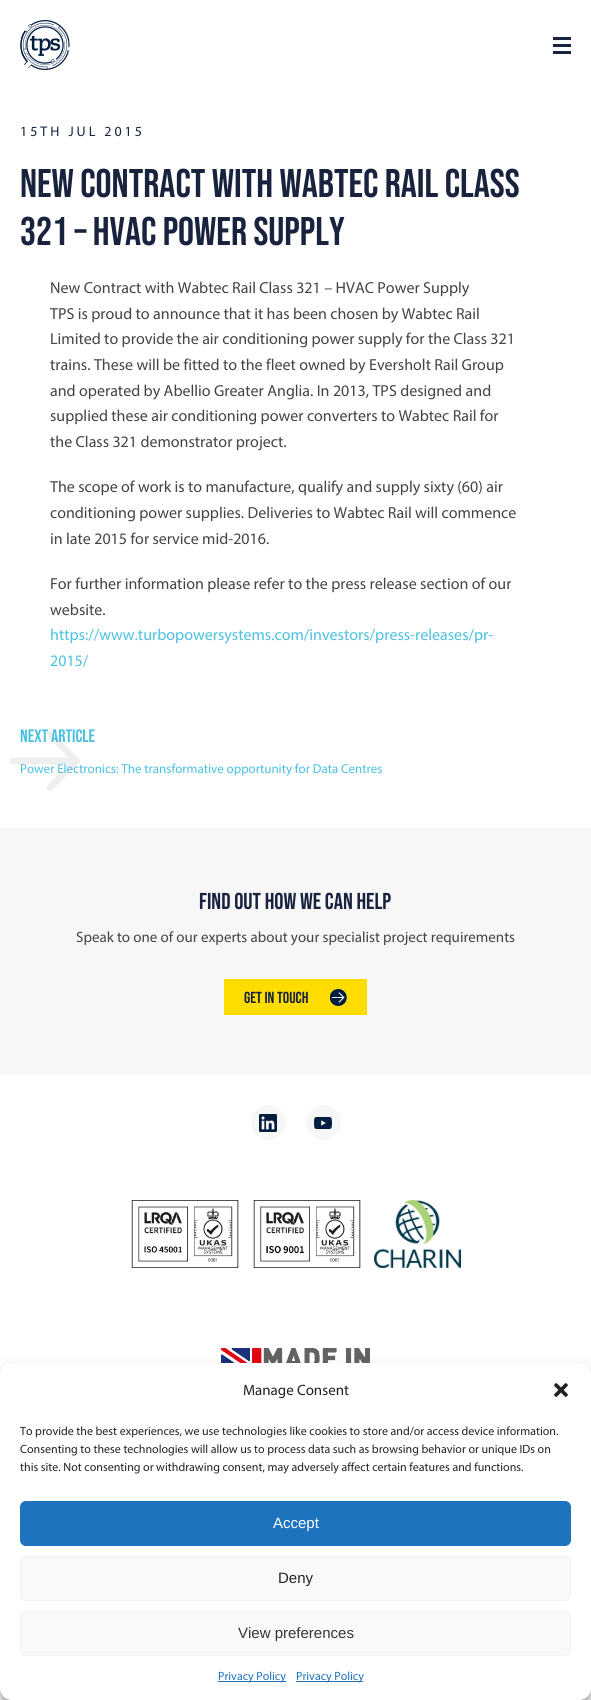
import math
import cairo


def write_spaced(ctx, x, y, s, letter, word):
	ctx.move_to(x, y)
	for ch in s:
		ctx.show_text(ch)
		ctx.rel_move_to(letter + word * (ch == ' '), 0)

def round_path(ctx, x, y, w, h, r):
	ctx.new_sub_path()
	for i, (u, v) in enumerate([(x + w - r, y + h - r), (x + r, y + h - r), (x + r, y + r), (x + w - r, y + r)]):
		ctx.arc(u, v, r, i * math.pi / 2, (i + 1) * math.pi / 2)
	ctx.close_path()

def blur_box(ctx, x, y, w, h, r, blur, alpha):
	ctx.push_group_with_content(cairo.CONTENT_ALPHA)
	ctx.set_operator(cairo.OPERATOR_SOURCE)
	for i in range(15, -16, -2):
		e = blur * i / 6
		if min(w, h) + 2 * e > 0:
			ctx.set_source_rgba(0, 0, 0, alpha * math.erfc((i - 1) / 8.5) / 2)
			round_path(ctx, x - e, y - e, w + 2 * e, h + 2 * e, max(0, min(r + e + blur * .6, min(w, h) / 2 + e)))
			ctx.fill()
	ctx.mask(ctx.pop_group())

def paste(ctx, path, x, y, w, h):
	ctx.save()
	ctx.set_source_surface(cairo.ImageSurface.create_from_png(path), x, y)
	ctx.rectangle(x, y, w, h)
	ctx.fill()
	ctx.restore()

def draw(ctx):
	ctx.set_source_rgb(1, 1, 1)
	ctx.paint()
	paste(ctx, 'media/1.png', 20, 20, 50, 50)
	ctx.set_source_rgb(0.098, 0.137, 0.243)
	ctx.rectangle(553, 37, 18, 3)
	ctx.rectangle(553, 44, 18, 3)
	ctx.rectangle(553, 51, 18, 3)
	ctx.fill()
	ctx.select_font_face('Myriad')
	ctx.set_font_size(14)
	write_spaced(ctx, 20, 136, '15TH JUL 2015', 3, 0)
	ctx.select_font_face('Bebas Neue')
	ctx.set_font_size(40)
	ctx.move_to(20, 197)
	ctx.show_text('NEW CONTRACT WITH WABTEC RAIL CLASS')
	ctx.move_to(20, 245)
	ctx.show_text('321 – HVAC POWER SUPPLY')
	ctx.select_font_face('Myriad')
	ctx.set_font_size(16)
	ctx.set_source_rgb(0.267, 0.267, 0.267)
	for x, y, s in [
		(50, 293, 'New Contract with Wabtec Rail Class 321 – HVAC Power Supply'),
		(50, 319, 'TPS is proud to announce that it has been chosen by Wabtec Rail'),
		(50, 344, 'Limited to provide the air conditioning power supply for the Class 321'),
		(50, 370, 'trains. These will be fitted to the fleet owned by Eversholt Rail Group'),
		(50, 396, 'and operated by Abellio Greater Anglia. In 2013, TPS designed and'),
		(50, 421, 'supplied these air conditioning power converters to Wabtec Rail for'),
		(50, 447, 'the Class 321 demonstrator project.'),
		(50, 492, 'The scope of work is to manufacture, qualify and supply sixty (60) air'),
		(50, 518, 'conditioning power supplies. Deliveries to Wabtec Rail will commence'),
		(50, 544, 'in late 2015 for service mid-2016.'),
		(50, 589, 'For further information please refer to the press release section of our'),
		(50, 615, 'website.'),
	]:
		ctx.move_to(x, y)
		ctx.show_text(s)
	ctx.set_source_rgb(0.29, 0.757, 0.878)
	ctx.move_to(50, 640)
	ctx.show_text('https://www.turbopowersystems.com/investors/press-releases/pr-')
	ctx.move_to(50, 666)
	ctx.show_text('2015/')
	ctx.new_path()
	ctx.move_to(13.5, 761)
	ctx.line_to(76.5, 761)
	ctx.line_to(50, 734.5)
	ctx.set_source_rgb(0.937, 0.937, 0.937)
	ctx.set_line_width(6.7)
	ctx.set_line_cap(cairo.LINE_CAP_ROUND)
	ctx.set_line_join(cairo.LINE_JOIN_ROUND)
	ctx.stroke()
	ctx.select_font_face('Bebas Neue')
	ctx.set_font_size(18)
	ctx.set_source_rgb(0.29, 0.757, 0.878)
	ctx.move_to(20, 742)
	ctx.show_text('NEXT ARTICLE')
	ctx.new_path()
	ctx.move_to(13.5, 761)
	ctx.line_to(76.5, 761)
	ctx.line_to(50, 787.5)
	ctx.set_source_rgb(0.937, 0.937, 0.937)
	ctx.stroke()
	ctx.select_font_face('Myriad')
	ctx.set_font_size(13)
	ctx.set_source_rgb(0.29, 0.757, 0.878)
	ctx.move_to(20, 773)
	ctx.show_text('Power Electronics: The transformative opportunity for Data Centres')
	ctx.set_source_rgb(0.965, 0.965, 0.965)
	ctx.rectangle(0, 828, 591, 247)
	ctx.fill()
	ctx.select_font_face('Bebas Neue')
	ctx.set_font_size(23)
	ctx.set_source_rgb(0.098, 0.137, 0.243)
	ctx.move_to(199, 909)
	ctx.show_text('FIND OUT HOW WE CAN HELP')
	ctx.select_font_face('Myriad')
	ctx.set_font_size(15)
	ctx.set_source_rgb(0.267, 0.267, 0.267)
	ctx.move_to(76, 942)
	ctx.show_text('Speak to one of our experts about your specialist project requirements')
	ctx.set_source_rgb(1, 0.867, 0)
	ctx.rectangle(224, 979, 143, 36)
	ctx.fill()
	ctx.select_font_face('Bebas Neue')
	ctx.set_font_size(16)
	ctx.set_source_rgb(0.098, 0.137, 0.243)
	ctx.move_to(244, 1003)
	ctx.show_text('GET IN TOUCH')
	paste(ctx, 'media/2.png', 330, 989, 17, 17)
	ctx.set_source_rgb(0.965, 0.965, 0.965)
	ctx.arc(268.5, 1122.5, 17.5, 0, 2 * math.pi)
	ctx.fill()
	paste(ctx, 'media/3.png', 259, 1114, 18, 18)
	ctx.arc(323.5, 1122.5, 17.5, 0, 2 * math.pi)
	ctx.fill()
	paste(ctx, 'media/4.png', 314, 1117, 18, 12)
	paste(ctx, 'media/5.png', 131, 1200, 108, 68)
	paste(ctx, 'media/6.png', 253, 1200, 108, 68)
	paste(ctx, 'media/7.png', 374, 1200, 87, 68)
	paste(ctx, 'media/8.png', 221, 1348, 149, 15)
	ctx.set_source_rgb(0, 0, 0)
	blur_box(ctx, 0, 1369, 591, 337, 12, 3, 0.23)
	blur_box(ctx, 0, 1373, 591, 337, 12, 10, 0.19)
	ctx.set_source_rgb(1, 1, 1)
	round_path(ctx, 0, 1363, 591, 337, 12)
	ctx.fill()
	ctx.select_font_face('Myriad')
	ctx.set_font_size(15)
	ctx.set_source_rgb(0.133, 0.133, 0.133)
	ctx.move_to(243, 1395)
	ctx.show_text('Manage Consent')
	paste(ctx, 'media/9.png', 554, 1383, 14, 14)
	ctx.set_font_size(12)
	for x, y, s in [
		(20, 1435, 'To provide the best experiences, we use technologies like cookies to store and/or access device information.'),
		(20, 1453, 'Consenting to these technologies will allow us to process data such as browsing behavior or unique IDs on'),
		(20, 1471, 'this site. Not consenting or withdrawing consent, may adversely affect certain features and functions.'),
	]:
		ctx.move_to(x, y)
		ctx.show_text(s)
	ctx.set_source_rgb(0.118, 0.451, 0.745)
	round_path(ctx, 20.5, 1501.5, 550, 44, 5.5)
	ctx.fill_preserve()
	ctx.set_line_width(1)
	ctx.set_line_cap(cairo.LINE_CAP_BUTT)
	ctx.set_line_join(cairo.LINE_JOIN_MITER)
	ctx.stroke()
	ctx.select_font_face('Liberation Sans')
	ctx.set_font_size(15)
	ctx.set_source_rgb(1, 1, 1)
	ctx.move_to(273, 1528)
	ctx.show_text('Accept')
	ctx.set_source_rgb(0.976, 0.976, 0.976)
	round_path(ctx, 20.5, 1556.5, 550, 44, 5.5)
	ctx.fill_preserve()
	ctx.set_source_rgb(0.949, 0.949, 0.949)
	ctx.stroke()
	ctx.set_source_rgb(0.133, 0.133, 0.133)
	ctx.move_to(278, 1583)
	ctx.show_text('Deny')
	ctx.set_source_rgb(0.976, 0.976, 0.976)
	round_path(ctx, 20.5, 1611.5, 550, 44, 5.5)
	ctx.fill_preserve()
	ctx.set_source_rgb(0.949, 0.949, 0.949)
	ctx.stroke()
	ctx.set_source_rgb(0.2, 0.2, 0.2)
	ctx.move_to(238, 1638)
	ctx.show_text('View preferences')
	ctx.set_source_rgb(0.118, 0.451, 0.745)
	ctx.rectangle(218, 1681, 68, 1)
	ctx.fill()
	ctx.select_font_face('Myriad')
	ctx.set_font_size(12)
	ctx.move_to(218, 1680)
	ctx.show_text('Privacy Policy')
	ctx.rectangle(296, 1681, 67, 1)
	ctx.fill()
	ctx.move_to(296, 1680)
	ctx.show_text('Privacy Policy')


surface = cairo.ImageSurface(cairo.FORMAT_RGB24, 591, 1700)
ctx = cairo.Context(surface)
options = cairo.FontOptions()
options.set_hint_metrics(cairo.HINT_METRICS_OFF)
options.set_hint_style(cairo.HINT_STYLE_NONE)
ctx.set_font_options(options)
ctx.set_miter_limit(4)
draw(ctx)
surface.write_to_png('image.png')
